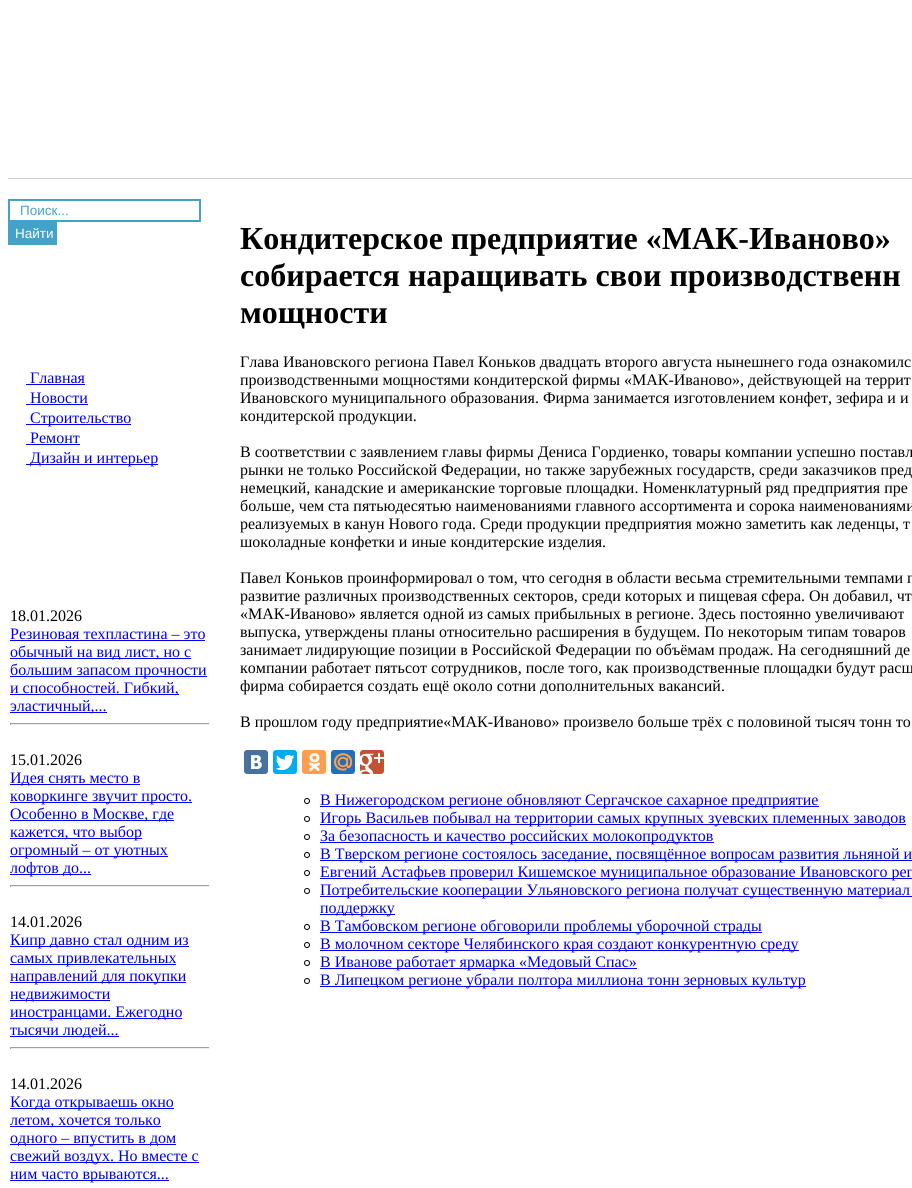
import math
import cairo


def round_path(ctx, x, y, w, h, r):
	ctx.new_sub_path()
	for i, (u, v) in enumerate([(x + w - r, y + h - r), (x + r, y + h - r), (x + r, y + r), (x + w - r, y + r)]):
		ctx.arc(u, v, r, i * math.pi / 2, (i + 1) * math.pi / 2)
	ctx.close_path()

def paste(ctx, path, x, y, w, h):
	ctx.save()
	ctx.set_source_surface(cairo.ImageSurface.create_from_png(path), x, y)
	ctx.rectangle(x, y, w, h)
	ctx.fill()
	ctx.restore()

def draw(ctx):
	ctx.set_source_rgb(1, 1, 1)
	ctx.paint()
	ctx.set_source_rgb(0.816, 0.816, 0.816)
	ctx.rectangle(8, 178, 904, 1)
	ctx.fill()
	ctx.rectangle(9, 200, 191, 21)
	ctx.set_source_rgb(0.267, 0.631, 0.78)
	ctx.stroke()
	ctx.select_font_face('Liberation Sans')
	ctx.set_font_size(13.5)
	ctx.move_to(20, 215)
	ctx.show_text('Поиск...')
	ctx.rectangle(8, 222, 49, 23)
	ctx.fill()
	ctx.set_source_rgb(1, 1, 1)
	ctx.move_to(15, 238)
	ctx.show_text('Найти')
	ctx.select_font_face('Liberation Serif')
	ctx.set_font_size(16)
	ctx.set_source_rgb(0, 0, 0.933)
	ctx.move_to(30, 383)
	ctx.show_text('Главная')
	ctx.rectangle(26, 384, 59, 1)
	ctx.fill()
	ctx.move_to(30, 403)
	ctx.show_text('Новости')
	ctx.rectangle(26, 404, 62, 1)
	ctx.fill()
	ctx.rectangle(26, 424, 105, 1)
	ctx.fill()
	ctx.move_to(30, 423)
	ctx.show_text('Строительство')
	ctx.move_to(30, 443)
	ctx.show_text('Ремонт')
	ctx.rectangle(26, 444, 54, 1)
	ctx.fill()
	ctx.rectangle(26, 464, 132, 1)
	ctx.fill()
	ctx.move_to(30, 463)
	ctx.show_text('Дизайн и интерьер')
	ctx.set_source_rgb(0, 0, 0)
	ctx.move_to(10, 621)
	ctx.show_text('18.01.2026')
	ctx.set_source_rgb(0, 0, 0.933)
	ctx.move_to(10, 639)
	ctx.show_text('Резиновая техпластина – это')
	ctx.rectangle(10, 640, 195, 1)
	ctx.fill()
	ctx.rectangle(10, 658, 181, 1)
	ctx.fill()
	ctx.move_to(10, 657)
	ctx.show_text('обычный на вид лист, но с')
	ctx.rectangle(10, 676, 197, 1)
	ctx.fill()
	ctx.move_to(10, 675)
	ctx.show_text('большим запасом прочности')
	ctx.rectangle(10, 694, 169, 1)
	ctx.fill()
	ctx.move_to(10, 693)
	ctx.show_text('и способностей. Гибкий,')
	ctx.rectangle(10, 712, 97, 1)
	ctx.fill()
	ctx.move_to(10, 711)
	ctx.show_text('эластичный,...')
	ctx.set_source_rgb(0.624, 0.624, 0.624)
	ctx.rectangle(10, 723, 200, 1)
	ctx.fill()
	ctx.set_source_rgb(0.933, 0.933, 0.933)
	ctx.rectangle(209, 723, 1, 2)
	ctx.rectangle(10, 724, 200, 1)
	ctx.fill()
	ctx.set_source_rgb(0.624, 0.624, 0.624)
	ctx.rectangle(10, 723, 1, 2)
	ctx.fill()
	ctx.set_source_rgb(0, 0, 0)
	ctx.move_to(10, 765)
	ctx.show_text('15.01.2026')
	ctx.set_source_rgb(0, 0, 0.933)
	ctx.rectangle(10, 784, 130, 1)
	ctx.fill()
	ctx.move_to(10, 783)
	ctx.show_text('Идея снять место в')
	ctx.rectangle(10, 802, 182, 1)
	ctx.fill()
	ctx.move_to(10, 801)
	ctx.show_text('коворкинге звучит просто.')
	ctx.rectangle(10, 820, 164, 1)
	ctx.fill()
	ctx.move_to(10, 819)
	ctx.show_text('Особенно в Москве, где')
	ctx.rectangle(10, 838, 132, 1)
	ctx.fill()
	ctx.move_to(10, 837)
	ctx.show_text('кажется, что выбор')
	ctx.rectangle(10, 856, 158, 1)
	ctx.fill()
	ctx.move_to(10, 855)
	ctx.show_text('огромный – от уютных')
	ctx.rectangle(10, 874, 81, 1)
	ctx.fill()
	ctx.move_to(10, 873)
	ctx.show_text('лофтов до...')
	ctx.set_source_rgb(0.624, 0.624, 0.624)
	ctx.rectangle(10, 885, 200, 1)
	ctx.fill()
	ctx.set_source_rgb(0.933, 0.933, 0.933)
	ctx.rectangle(209, 885, 1, 2)
	ctx.rectangle(10, 886, 200, 1)
	ctx.fill()
	ctx.set_source_rgb(0.624, 0.624, 0.624)
	ctx.rectangle(10, 885, 1, 2)
	ctx.fill()
	ctx.set_source_rgb(0, 0, 0)
	ctx.move_to(10, 927)
	ctx.show_text('14.01.2026')
	ctx.set_source_rgb(0, 0, 0.933)
	ctx.rectangle(10, 946, 179, 1)
	ctx.fill()
	ctx.move_to(10, 945)
	ctx.show_text('Кипр давно стал одним из')
	ctx.rectangle(10, 964, 166, 1)
	ctx.fill()
	ctx.move_to(10, 963)
	ctx.show_text('самых привлекательных')
	ctx.rectangle(10, 982, 176, 1)
	ctx.fill()
	ctx.move_to(10, 981)
	ctx.show_text('направлений для покупки')
	ctx.rectangle(10, 1000, 100, 1)
	ctx.fill()
	ctx.move_to(10, 999)
	ctx.show_text('недвижимости')
	ctx.rectangle(10, 1018, 172, 1)
	ctx.fill()
	ctx.move_to(10, 1017)
	ctx.show_text('иностранцами. Ежегодно')
	ctx.rectangle(10, 1036, 109, 1)
	ctx.fill()
	ctx.move_to(10, 1035)
	ctx.show_text('тысячи людей...')
	ctx.set_source_rgb(0.624, 0.624, 0.624)
	ctx.rectangle(10, 1047, 200, 1)
	ctx.fill()
	ctx.set_source_rgb(0.933, 0.933, 0.933)
	ctx.rectangle(209, 1047, 1, 2)
	ctx.rectangle(10, 1048, 200, 1)
	ctx.fill()
	ctx.set_source_rgb(0.624, 0.624, 0.624)
	ctx.rectangle(10, 1047, 1, 2)
	ctx.fill()
	ctx.set_source_rgb(0, 0, 0)
	ctx.move_to(10, 1089)
	ctx.show_text('14.01.2026')
	ctx.set_source_rgb(0, 0, 0.933)
	ctx.rectangle(10, 1108, 164, 1)
	ctx.fill()
	ctx.move_to(10, 1107)
	ctx.show_text('Когда открываешь окно')
	ctx.rectangle(10, 1126, 151, 1)
	ctx.fill()
	ctx.move_to(10, 1125)
	ctx.show_text('летом, хочется только')
	ctx.rectangle(10, 1144, 166, 1)
	ctx.fill()
	ctx.move_to(10, 1143)
	ctx.show_text('одного – впустить в дом')
	ctx.rectangle(10, 1162, 189, 1)
	ctx.fill()
	ctx.move_to(10, 1161)
	ctx.show_text('свежий воздух. Но вместе с')
	ctx.rectangle(10, 1180, 159, 1)
	ctx.fill()
	ctx.move_to(10, 1179)
	ctx.show_text('ним часто врываются...')
	ctx.select_font_face('Liberation Serif', cairo.FONT_SLANT_NORMAL, cairo.FONT_WEIGHT_BOLD)
	ctx.set_font_size(32)
	ctx.set_source_rgb(0, 0, 0)
	for x, y, s in [
		(240, 249, 'Кондитерское предприятие «МАК-Иваново»'),
		(240, 286, 'собирается наращивать свои производственн'),
		(240, 323, 'мощности'),
	]:
		ctx.move_to(x, y)
		ctx.show_text(s)
	ctx.select_font_face('Liberation Serif')
	ctx.set_font_size(16)
	for x, y, s in [
		(240, 367, 'Глава Ивановского региона Павел Коньков двадцать второго августа нынешнего года ознакомилс'),
		(240, 385, 'производственными мощностями кондитерской фирмы «МАК-Иваново», действующей на террит'),
		(240, 403, 'Ивановского муниципального образования. Фирма занимается изготовлением конфет, зефира и и'),
		(240, 421, 'кондитерской продукции.'),
		(240, 457, 'В соответствии с заявлением главы фирмы Дениса Гордиенко, товары компании успешно поставл'),
		(240, 475, 'рынки не только Российской Федерации, но также зарубежных государств, среди заказчиков пред'),
		(240, 493, 'немецкий, канадские и американские торговые площадки. Номенклатурный ряд предприятия пре'),
		(240, 511, 'больше, чем ста пятьюдесятью наименованиями главного ассортимента и сорока наименованиями'),
		(240, 529, 'реализуемых в канун Нового года. Среди продукции предприятия можно заметить как леденцы, т'),
		(240, 547, 'шоколадные конфетки и иные кондитерские изделия.'),
		(240, 583, 'Павел Коньков проинформировал о том, что сегодня в области весьма стремительными темпами п'),
		(240, 601, 'развитие различных производственных секторов, среди которых и пищевая сфера. Он добавил, чт'),
		(240, 619, '«МАК-Иваново» является одной из самых прибыльных в регионе. Здесь постоянно увеличивают'),
		(240, 637, 'выпуска, утверждены планы относительно расширения в будущем. По некоторым типам товаров'),
		(240, 655, 'занимает лидирующие позиции в Российской Федерации по объёмам продаж. На сегодняшний де'),
		(240, 673, 'компании работает пятьсот сотрудников, после того, как производственные площадки будут расш'),
		(240, 691, 'фирма собирается создать ещё около сотни дополнительных вакансий.'),
		(240, 727, 'В прошлом году предприятие«МАК-Иваново» произвело больше трёх с половиной тысяч тонн то'),
	]:
		ctx.move_to(x, y)
		ctx.show_text(s)
	ctx.set_source_rgb(0.282, 0.447, 0.62)
	round_path(ctx, 244, 750, 24, 24, 3)
	ctx.fill()
	paste(ctx, 'media/1.png', 251, 755, 11, 14)
	ctx.set_source_rgb(0, 0.675, 0.929)
	round_path(ctx, 273, 750, 24, 24, 3)
	ctx.fill()
	paste(ctx, 'media/2.png', 276, 755, 18, 15)
	ctx.set_source_rgb(1, 0.624, 0.302)
	round_path(ctx, 302, 750, 24, 24, 3)
	ctx.fill()
	paste(ctx, 'media/3.png', 309, 753, 11, 18)
	ctx.set_source_rgb(0.133, 0.431, 0.718)
	round_path(ctx, 331, 750, 24, 24, 3)
	ctx.fill()
	paste(ctx, 'media/4.png', 334, 753, 18, 18)
	ctx.set_source_rgb(0.761, 0.322, 0.204)
	round_path(ctx, 360, 750, 24, 24, 3)
	ctx.fill()
	paste(ctx, 'media/5.png', 360, 753, 24, 21)
	ctx.arc(307, 801, 2.5, 0, 2 * math.pi)
	ctx.set_source_rgb(0, 0, 0)
	ctx.set_line_width(1)
	ctx.stroke()
	ctx.set_source_rgb(0, 0, 0.933)
	ctx.rectangle(320, 806, 499, 1)
	ctx.fill()
	ctx.move_to(320, 805)
	ctx.show_text('В Нижегородском регионе обновляют Сергачское сахарное предприятие')
	ctx.new_path()
	ctx.arc(307, 819, 2.5, 0, 2 * math.pi)
	ctx.set_source_rgb(0, 0, 0)
	ctx.stroke()
	ctx.set_source_rgb(0, 0, 0.933)
	ctx.rectangle(320, 824, 586, 1)
	ctx.fill()
	ctx.move_to(320, 823)
	ctx.show_text('Игорь Васильев побывал на территории самых крупных зуевских племенных заводов')
	ctx.new_path()
	ctx.arc(307, 837, 2.5, 0, 2 * math.pi)
	ctx.set_source_rgb(0, 0, 0)
	ctx.stroke()
	ctx.set_source_rgb(0, 0, 0.933)
	ctx.rectangle(320, 842, 394, 1)
	ctx.fill()
	ctx.move_to(320, 841)
	ctx.show_text('За безопасность и качество российских молокопродуктов')
	ctx.new_path()
	ctx.arc(307, 855, 2.5, 0, 2 * math.pi)
	ctx.set_source_rgb(0, 0, 0)
	ctx.stroke()
	ctx.set_source_rgb(0, 0, 0.933)
	ctx.rectangle(320, 860, 592, 1)
	ctx.fill()
	ctx.move_to(320, 859)
	ctx.show_text('В Тверском регионе состоялось заседание, посвящённое вопросам развития льняной и')
	ctx.new_path()
	ctx.arc(307, 873, 2.5, 0, 2 * math.pi)
	ctx.set_source_rgb(0, 0, 0)
	ctx.stroke()
	ctx.set_source_rgb(0, 0, 0.933)
	ctx.rectangle(320, 878, 592, 1)
	ctx.fill()
	ctx.move_to(320, 877)
	ctx.show_text('Евгений Астафьев проверил Кишемское муниципальное образование Ивановского рег')
	ctx.new_path()
	ctx.arc(307, 891, 2.5, 0, 2 * math.pi)
	ctx.set_source_rgb(0, 0, 0)
	ctx.stroke()
	ctx.set_source_rgb(0, 0, 0.933)
	ctx.rectangle(320, 896, 592, 1)
	ctx.fill()
	ctx.move_to(320, 895)
	ctx.show_text('Потребительские кооперации Ульяновского региона получат существенную материал')
	ctx.rectangle(320, 914, 75, 1)
	ctx.fill()
	ctx.move_to(320, 913)
	ctx.show_text('поддержку')
	ctx.new_path()
	ctx.arc(307, 927, 2.5, 0, 2 * math.pi)
	ctx.set_source_rgb(0, 0, 0)
	ctx.stroke()
	ctx.set_source_rgb(0, 0, 0.933)
	ctx.rectangle(320, 932, 442, 1)
	ctx.fill()
	ctx.move_to(320, 931)
	ctx.show_text('В Тамбовском регионе обговорили проблемы уборочной страды')
	ctx.new_path()
	ctx.arc(307, 945, 2.5, 0, 2 * math.pi)
	ctx.set_source_rgb(0, 0, 0)
	ctx.stroke()
	ctx.set_source_rgb(0, 0, 0.933)
	ctx.rectangle(320, 950, 479, 1)
	ctx.fill()
	ctx.move_to(320, 949)
	ctx.show_text('В молочном секторе Челябинского края создают конкурентную среду')
	ctx.new_path()
	ctx.arc(307, 963, 2.5, 0, 2 * math.pi)
	ctx.set_source_rgb(0, 0, 0)
	ctx.stroke()
	ctx.set_source_rgb(0, 0, 0.933)
	ctx.rectangle(320, 968, 317, 1)
	ctx.fill()
	ctx.move_to(320, 967)
	ctx.show_text('В Иванове работает ярмарка «Медовый Спас»')
	ctx.new_path()
	ctx.arc(307, 981, 2.5, 0, 2 * math.pi)
	ctx.set_source_rgb(0, 0, 0)
	ctx.stroke()
	ctx.set_source_rgb(0, 0, 0.933)
	ctx.rectangle(320, 986, 486, 1)
	ctx.fill()
	ctx.move_to(320, 985)
	ctx.show_text('В Липецком регионе убрали полтора миллиона тонн зерновых культур')


surface = cairo.ImageSurface(cairo.FORMAT_RGB24, 912, 1188)
ctx = cairo.Context(surface)
options = cairo.FontOptions()
options.set_hint_metrics(cairo.HINT_METRICS_OFF)
options.set_hint_style(cairo.HINT_STYLE_NONE)
ctx.set_font_options(options)
ctx.set_miter_limit(4)
draw(ctx)
surface.write_to_png('image.png')
